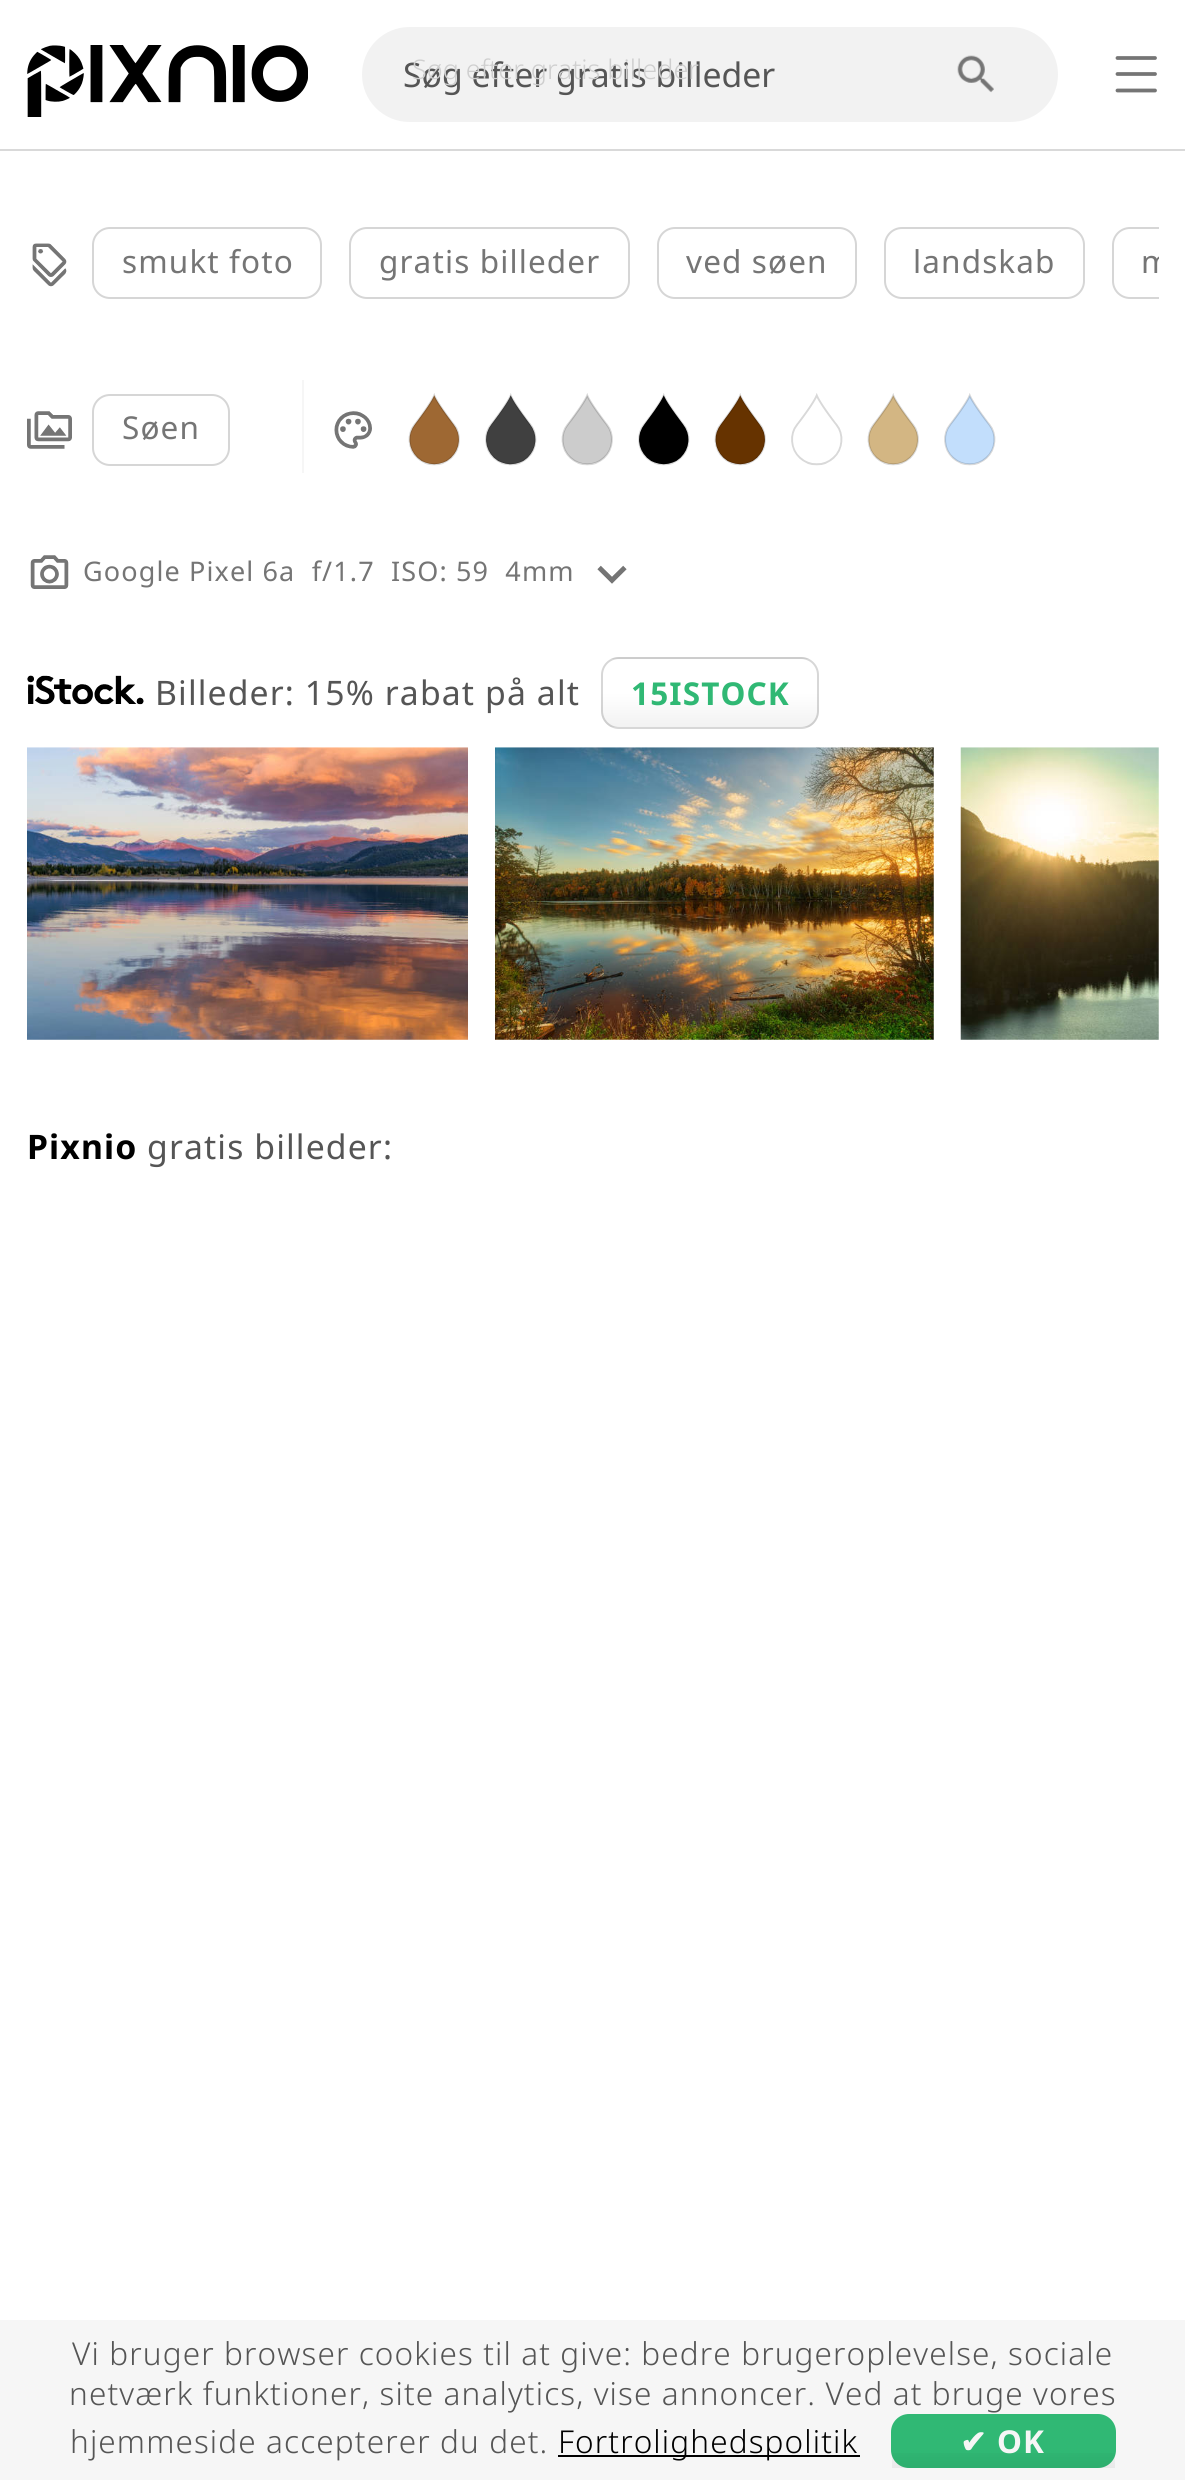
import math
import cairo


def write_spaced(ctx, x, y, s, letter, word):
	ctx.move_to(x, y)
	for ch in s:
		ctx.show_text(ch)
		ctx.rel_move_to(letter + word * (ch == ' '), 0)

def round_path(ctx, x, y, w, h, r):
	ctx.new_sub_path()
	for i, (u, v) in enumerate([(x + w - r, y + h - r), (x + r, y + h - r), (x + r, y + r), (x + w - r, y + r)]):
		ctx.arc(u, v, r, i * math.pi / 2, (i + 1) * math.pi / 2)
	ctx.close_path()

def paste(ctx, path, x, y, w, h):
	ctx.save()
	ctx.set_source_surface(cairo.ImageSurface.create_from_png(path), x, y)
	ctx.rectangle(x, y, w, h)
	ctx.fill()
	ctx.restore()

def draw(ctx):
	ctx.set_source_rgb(1, 1, 1)
	ctx.paint()
	ctx.set_source_rgb(0.851, 0.851, 0.851)
	ctx.rectangle(0, 149, 1185, 2)
	ctx.fill()
	paste(ctx, 'media/1.png', 27, 45, 281, 72)
	ctx.set_source_rgb(0.949, 0.949, 0.949)
	round_path(ctx, 362, 27, 696, 95, 47.5)
	ctx.fill()
	ctx.select_font_face('Noto Sans')
	ctx.set_font_size(33.75)
	ctx.set_source_rgb(0.333, 0.333, 0.333)
	ctx.move_to(403, 87)
	ctx.show_text('Søg efter gratis billeder')
	ctx.select_font_face('Noto Sans Light')
	ctx.set_font_size(27)
	ctx.set_source_rgb(0.812, 0.812, 0.812)
	ctx.move_to(412, 79)
	ctx.show_text('Søg efter gratis billeder')
	paste(ctx, 'media/2.png', 957, 55, 37, 38)
	ctx.new_path()
	ctx.move_to(1117.5, 58)
	ctx.line_to(1155, 58)
	ctx.move_to(1117.5, 74)
	ctx.line_to(1155, 74)
	ctx.move_to(1155, 90.5)
	ctx.line_to(1117.5, 90.5)
	ctx.set_source_rgb(0.459, 0.459, 0.459)
	ctx.set_line_width(3.8)
	ctx.set_line_cap(cairo.LINE_CAP_ROUND)
	ctx.stroke()
	paste(ctx, 'media/3.png', 32, 243, 35, 44)
	round_path(ctx, 93, 228, 228, 70, 17)
	ctx.set_source_rgb(0.839, 0.839, 0.839)
	ctx.set_line_width(2)
	ctx.set_line_cap(cairo.LINE_CAP_BUTT)
	ctx.stroke()
	ctx.select_font_face('Noto Sans')
	ctx.set_font_size(31.5)
	ctx.set_source_rgb(0.459, 0.459, 0.459)
	write_spaced(ctx, 122, 273, 'smukt foto', 1.12, 0)
	round_path(ctx, 350, 228, 279, 70, 17)
	ctx.set_source_rgb(0.839, 0.839, 0.839)
	ctx.stroke()
	ctx.set_source_rgb(0.459, 0.459, 0.459)
	write_spaced(ctx, 379, 273, 'gratis billeder', 1.12, 0)
	round_path(ctx, 658, 228, 198, 70, 17)
	ctx.set_source_rgb(0.839, 0.839, 0.839)
	ctx.stroke()
	ctx.set_source_rgb(0.459, 0.459, 0.459)
	write_spaced(ctx, 686, 273, 'ved søen', 1.12, 0)
	round_path(ctx, 885, 228, 199, 70, 17)
	ctx.set_source_rgb(0.839, 0.839, 0.839)
	ctx.stroke()
	ctx.set_source_rgb(0.459, 0.459, 0.459)
	write_spaced(ctx, 913, 273, 'landskab', 1.12, 0)
	ctx.save()
	ctx.rectangle(27, 218, 1132, 113)
	ctx.clip()
	round_path(ctx, 1113, 228, 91, 70, 17)
	ctx.set_source_rgb(0.839, 0.839, 0.839)
	ctx.stroke()
	ctx.set_source_rgb(0.459, 0.459, 0.459)
	write_spaced(ctx, 1141, 273, 'm', 1.12, 0)
	ctx.restore()
	paste(ctx, 'media/4.png', 27, 411, 45, 38)
	round_path(ctx, 93, 395, 136, 70, 17)
	ctx.set_source_rgb(0.839, 0.839, 0.839)
	ctx.stroke()
	ctx.set_source_rgb(0.459, 0.459, 0.459)
	write_spaced(ctx, 122, 439, 'Søen', 1.12, 0)
	ctx.set_source_rgb(0.961, 0.961, 0.961)
	ctx.rectangle(302, 380, 2, 93)
	ctx.fill()
	paste(ctx, 'media/5.png', 334, 411, 38, 38)
	paste(ctx, 'media/6.png', 408, 393, 52, 73)
	paste(ctx, 'media/7.png', 485, 393, 52, 73)
	paste(ctx, 'media/8.png', 561, 393, 52, 73)
	paste(ctx, 'media/9.png', 638, 393, 52, 73)
	paste(ctx, 'media/10.png', 714, 393, 52, 73)
	paste(ctx, 'media/11.png', 791, 393, 52, 73)
	paste(ctx, 'media/12.png', 867, 393, 52, 73)
	paste(ctx, 'media/13.png', 944, 393, 52, 73)
	paste(ctx, 'media/14.png', 30, 555, 39, 34)
	ctx.set_font_size(27)
	ctx.set_source_rgb(0.459, 0.459, 0.459)
	write_spaced(ctx, 83, 581, 'Google Pixel 6a  f/1.7  ISO: 59  4mm', 1.12, 0)
	paste(ctx, 'media/15.png', 597, 565, 30, 19)
	paste(ctx, 'media/16.png', 27, 675, 117, 30)
	ctx.set_font_size(33.75)
	ctx.set_source_rgb(0.333, 0.333, 0.333)
	write_spaced(ctx, 155, 705, 'Billeder: 15% rabat på alt', 1.12, 0)
	ctx.save()
	round_path(ctx, 601, 657, 218, 72, 18)
	ctx.clip()
	gradient = cairo.LinearGradient(710, 592, 710, 659)
	gradient.add_color_stop_rgba(0.5, 1, 1, 1, 1)
	gradient.add_color_stop_rgba(1, 0.949, 0.949, 0.949, 1)
	ctx.set_source(gradient)
	ctx.rectangle(611, 657, 198, 2)
	ctx.fill()
	gradient = cairo.LinearGradient(710, 659, 710, 727)
	gradient.add_color_stop_rgba(0.5, 1, 1, 1, 1)
	gradient.add_color_stop_rgba(1, 0.949, 0.949, 0.949, 1)
	ctx.set_source(gradient)
	ctx.rectangle(601, 659, 218, 68)
	ctx.fill()
	ctx.restore()
	round_path(ctx, 602, 658, 216, 70, 17)
	ctx.set_source_rgba(0, 0, 0, 0.16)
	ctx.stroke()
	ctx.select_font_face('Noto Sans', cairo.FONT_SLANT_NORMAL, cairo.FONT_WEIGHT_BOLD)
	ctx.set_font_size(31.5)
	ctx.set_source_rgb(0.188, 0.722, 0.455)
	write_spaced(ctx, 631, 705, '15ISTOCK', 1.12, 0)
	paste(ctx, 'media/17.png', 27, 747, 441, 293)
	paste(ctx, 'media/18.png', 495, 747, 439, 293)
	paste(ctx, 'media/19.png', 960, 747, 199, 293)
	ctx.set_font_size(33.75)
	ctx.set_source_rgb(0, 0, 0)
	write_spaced(ctx, 27, 1159, 'Pixnio', 1.12, 0)
	ctx.select_font_face('Noto Sans')
	ctx.set_source_rgb(0.333, 0.333, 0.333)
	write_spaced(ctx, 147, 1159, 'gratis billeder:', 1.12, 0)
	ctx.set_source_rgb(0.961, 0.961, 0.961)
	ctx.rectangle(0, 2320, 1185, 160)
	ctx.fill()
	ctx.select_font_face('Noto Sans Light')
	ctx.set_font_size(31.5)
	ctx.set_source_rgb(0.333, 0.333, 0.333)
	for x, y, s in [
		(72, 2365, 'Vi bruger browser cookies til at give: bedre brugeroplevelse, sociale'),
		(69, 2405, 'netværk funktioner, site analytics, vise annoncer. Ved at bruge vores'),
		(70, 2453, 'hjemmeside accepterer du det.'),
	]:
		write_spaced(ctx, x, y, s, 1.12, 0)
	ctx.set_source_rgb(0, 0, 0)
	ctx.rectangle(558, 2455, 302, 2)
	ctx.fill()
	write_spaced(ctx, 558, 2453, 'Fortrolighedspolitik', 1.12, 0)
	ctx.set_source_rgb(0.188, 0.722, 0.455)
	round_path(ctx, 891, 2414, 225, 54, 18)
	ctx.fill()
	gradient = cairo.LinearGradient(1004, 2414, 1004, 2468)
	gradient.add_color_stop_rgba(0.5, 0, 0, 0, 0)
	gradient.add_color_stop_rgba(1, 0, 0, 0, 0.05)
	ctx.set_source(gradient)
	ctx.rectangle(892, 2453, 223, 15)
	ctx.fill()
	ctx.select_font_face('DejaVu Sans', cairo.FONT_SLANT_NORMAL, cairo.FONT_WEIGHT_BOLD)
	ctx.set_source_rgb(0.961, 0.961, 0.961)
	write_spaced(ctx, 960, 2453, '✔', 1.12, 0)
	ctx.select_font_face('Noto Sans', cairo.FONT_SLANT_NORMAL, cairo.FONT_WEIGHT_BOLD)
	write_spaced(ctx, 997, 2453, 'OK', 1.12, 0)


surface = cairo.ImageSurface(cairo.FORMAT_RGB24, 1185, 2480)
ctx = cairo.Context(surface)
options = cairo.FontOptions()
options.set_hint_metrics(cairo.HINT_METRICS_OFF)
options.set_hint_style(cairo.HINT_STYLE_NONE)
ctx.set_font_options(options)
ctx.set_miter_limit(4)
draw(ctx)
surface.write_to_png('image.png')
